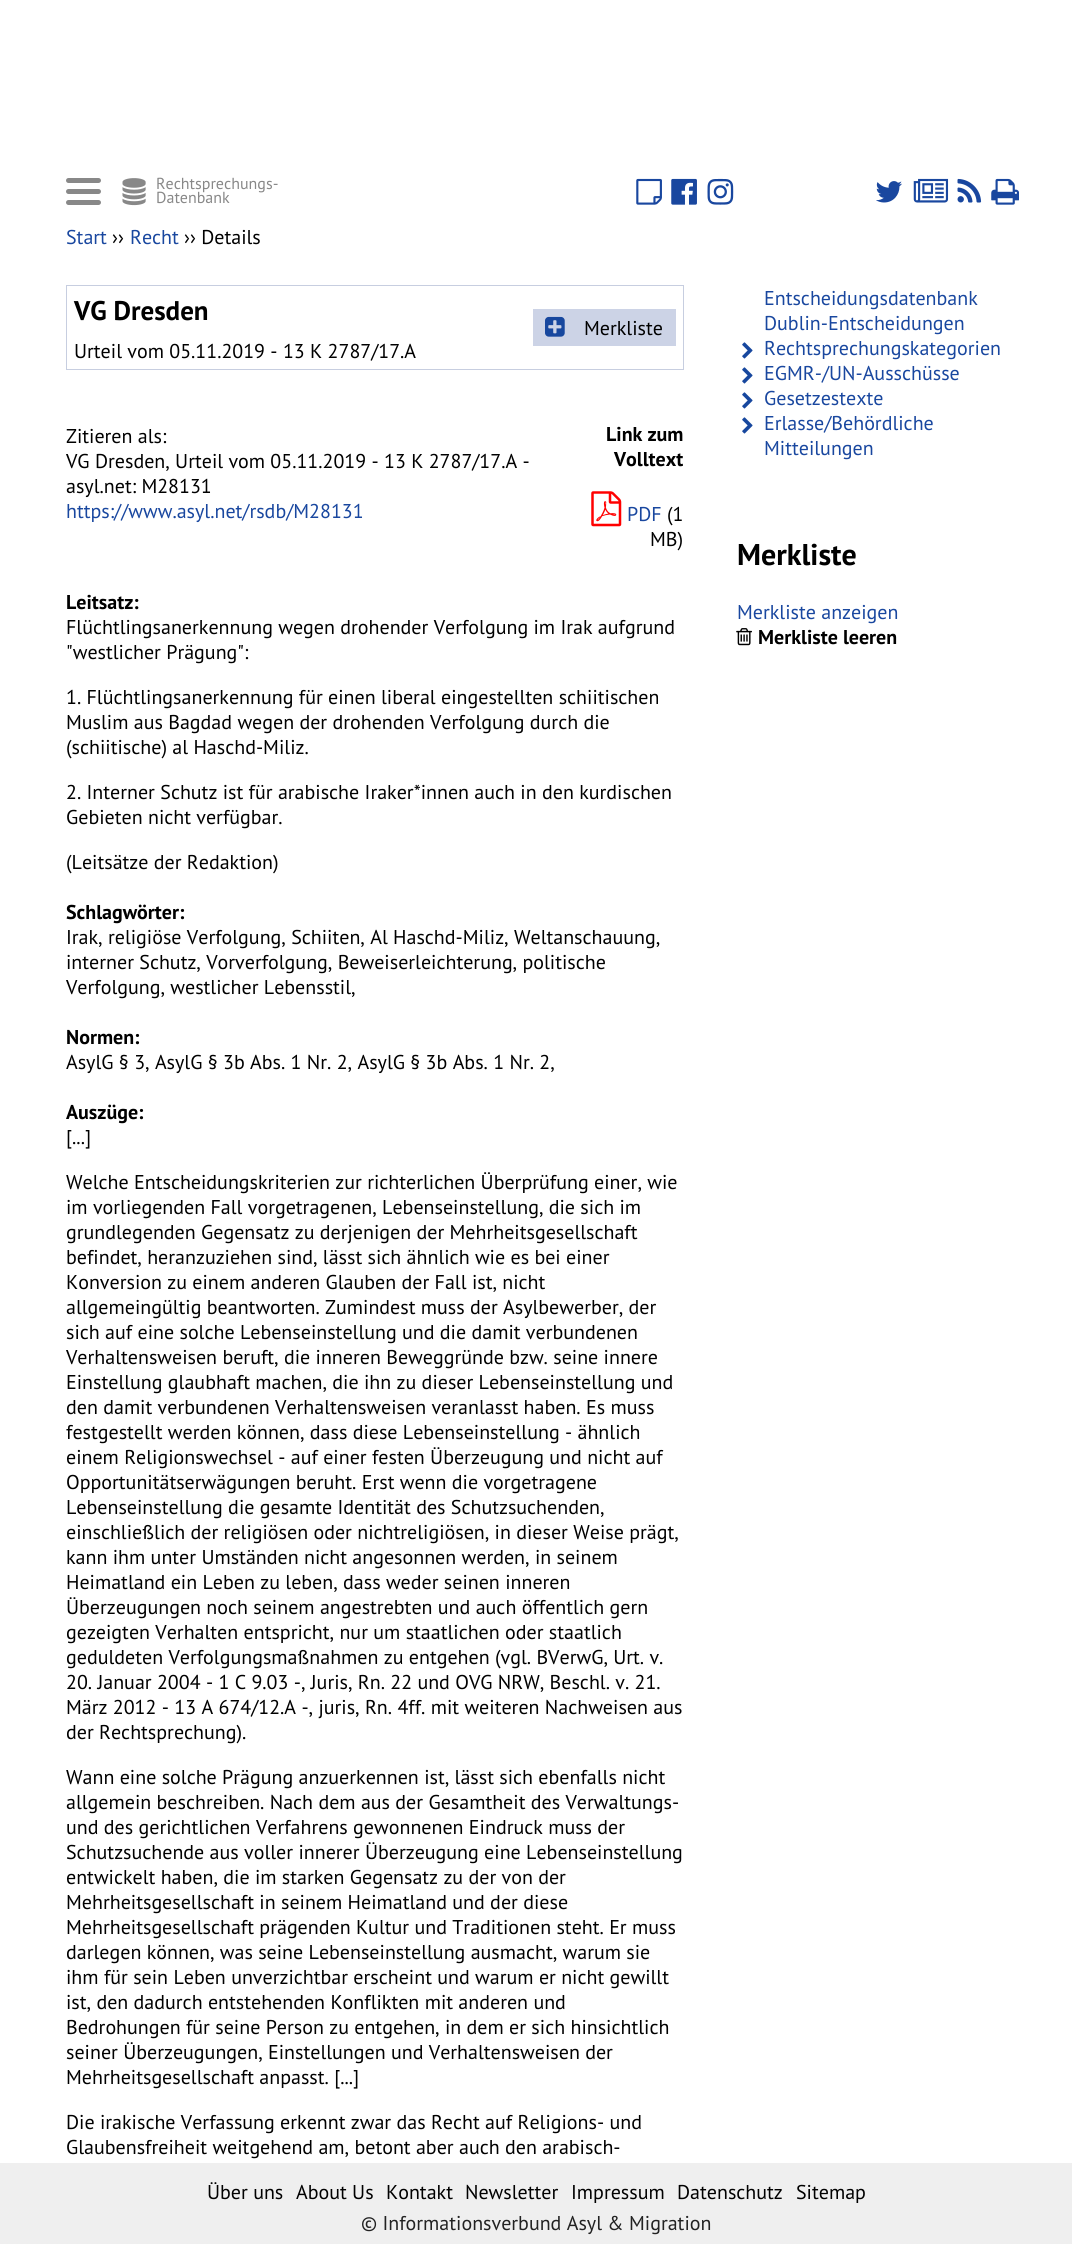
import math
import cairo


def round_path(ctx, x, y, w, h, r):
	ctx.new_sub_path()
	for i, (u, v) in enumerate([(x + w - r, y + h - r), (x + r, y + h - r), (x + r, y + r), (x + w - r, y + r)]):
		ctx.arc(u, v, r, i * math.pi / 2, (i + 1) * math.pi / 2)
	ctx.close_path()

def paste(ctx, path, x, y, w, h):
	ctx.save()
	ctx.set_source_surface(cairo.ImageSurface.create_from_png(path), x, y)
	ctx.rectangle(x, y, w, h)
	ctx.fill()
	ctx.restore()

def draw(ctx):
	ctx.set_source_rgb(1, 1, 1)
	ctx.paint()
	ctx.set_source_rgb(0.937, 0.937, 0.937)
	ctx.rectangle(0, 2163, 1072, 81)
	ctx.fill()
	ctx.set_source_rgb(0.533, 0.533, 0.533)
	round_path(ctx, 66, 189, 35, 5, 2.5)
	ctx.fill()
	round_path(ctx, 66, 178, 35, 5, 2.5)
	ctx.fill()
	round_path(ctx, 66, 200, 35, 5, 2.5)
	ctx.fill()
	paste(ctx, 'media/1.png', 122, 178, 24, 28)
	ctx.select_font_face('PT Sans')
	ctx.set_font_size(16)
	ctx.move_to(156, 189)
	ctx.show_text('Rechtsprechungs-')
	ctx.move_to(156, 203)
	ctx.show_text('Datenbank')
	paste(ctx, 'media/2.png', 636, 178, 26, 27)
	paste(ctx, 'media/3.png', 671, 178, 26, 27)
	paste(ctx, 'media/4.png', 707, 178, 27, 27)
	paste(ctx, 'media/5.png', 876, 181, 26, 22)
	paste(ctx, 'media/6.png', 913, 178, 36, 25)
	paste(ctx, 'media/7.png', 957, 178, 25, 25)
	paste(ctx, 'media/8.png', 991, 178, 28, 27)
	ctx.set_font_size(20)
	ctx.set_source_rgb(0.098, 0.278, 0.624)
	ctx.move_to(66, 244)
	ctx.show_text('Start')
	ctx.set_source_rgb(0, 0, 0)
	ctx.move_to(112, 244)
	ctx.show_text('››')
	ctx.set_source_rgb(0.098, 0.278, 0.624)
	ctx.move_to(130, 244)
	ctx.show_text('Recht')
	ctx.set_source_rgb(0, 0, 0)
	ctx.move_to(184, 244)
	ctx.show_text('›› Details')
	ctx.rectangle(66.5, 285.5, 617, 84)
	ctx.set_source_rgb(0.78, 0.808, 0.878)
	ctx.set_line_width(1)
	ctx.stroke()
	ctx.select_font_face('PT Sans', cairo.FONT_SLANT_NORMAL, cairo.FONT_WEIGHT_BOLD)
	ctx.set_font_size(27)
	ctx.set_source_rgb(0, 0, 0)
	ctx.move_to(74, 320)
	ctx.show_text('VG Dresden')
	ctx.select_font_face('PT Sans')
	ctx.set_font_size(20)
	ctx.move_to(74, 358)
	ctx.show_text('Urteil vom 05.11.2019 - 13 K 2787/17.A')
	ctx.set_source_rgb(0.8, 0.827, 0.902)
	ctx.rectangle(533, 309, 143, 37)
	ctx.fill()
	paste(ctx, 'media/9.png', 545, 316, 20, 21)
	ctx.set_source_rgb(0, 0, 0)
	for x, y, s in [
		(584, 335, 'Merkliste'),
		(66, 443, 'Zitieren als:'),
		(66, 468, 'VG Dresden, Urteil vom 05.11.2019 - 13 K 2787/17.A -'),
		(66, 493, 'asyl.net: M28131'),
	]:
		ctx.move_to(x, y)
		ctx.show_text(s)
	ctx.set_source_rgb(0.098, 0.278, 0.624)
	ctx.move_to(66, 518)
	ctx.show_text('https://www.asyl.net/rsdb/M28131')
	ctx.select_font_face('PT Sans', cairo.FONT_SLANT_NORMAL, cairo.FONT_WEIGHT_BOLD)
	ctx.set_source_rgb(0, 0, 0)
	ctx.move_to(606, 441)
	ctx.show_text('Link zum')
	ctx.move_to(614, 466)
	ctx.show_text('Volltext')
	paste(ctx, 'media/10.png', 591, 491, 31, 36)
	ctx.select_font_face('PT Sans')
	ctx.set_source_rgb(0.098, 0.278, 0.624)
	ctx.move_to(627, 521)
	ctx.show_text('PDF')
	ctx.set_source_rgb(0, 0, 0)
	ctx.move_to(667, 521)
	ctx.show_text('(1')
	ctx.move_to(650, 546)
	ctx.show_text('MB)')
	ctx.select_font_face('PT Sans', cairo.FONT_SLANT_NORMAL, cairo.FONT_WEIGHT_BOLD)
	ctx.move_to(66, 609)
	ctx.show_text('Leitsatz:')
	ctx.select_font_face('PT Sans')
	for x, y, s in [
		(66, 634, 'Flüchtlingsanerkennung wegen drohender Verfolgung im Irak aufgrund'),
		(66, 659, '"westlicher Prägung":'),
		(66, 704, '1. Flüchtlingsanerkennung für einen liberal eingestellten schiitischen'),
		(66, 729, 'Muslim aus Bagdad wegen der drohenden Verfolgung durch die'),
		(66, 754, '(schiitische) al Haschd-Miliz.'),
		(66, 799, '2. Interner Schutz ist für arabische Iraker*innen auch in den kurdischen'),
		(66, 824, 'Gebieten nicht verfügbar.'),
		(66, 869, '(Leitsätze der Redaktion)'),
	]:
		ctx.move_to(x, y)
		ctx.show_text(s)
	ctx.select_font_face('PT Sans', cairo.FONT_SLANT_NORMAL, cairo.FONT_WEIGHT_BOLD)
	ctx.move_to(66, 919)
	ctx.show_text('Schlagwörter:')
	ctx.select_font_face('PT Sans')
	for x, y, s in [
		(66, 944, 'Irak, religiöse Verfolgung, Schiiten, Al Haschd-Miliz, Weltanschauung,'),
		(66, 969, 'interner Schutz, Vorverfolgung, Beweiserleichterung, politische'),
		(66, 994, 'Verfolgung, westlicher Lebensstil,'),
	]:
		ctx.move_to(x, y)
		ctx.show_text(s)
	ctx.select_font_face('PT Sans', cairo.FONT_SLANT_NORMAL, cairo.FONT_WEIGHT_BOLD)
	ctx.move_to(66, 1044)
	ctx.show_text('Normen:')
	ctx.select_font_face('PT Sans')
	ctx.move_to(66, 1069)
	ctx.show_text('AsylG § 3, AsylG § 3b Abs. 1 Nr. 2, AsylG § 3b Abs. 1 Nr. 2,')
	ctx.select_font_face('PT Sans', cairo.FONT_SLANT_NORMAL, cairo.FONT_WEIGHT_BOLD)
	ctx.move_to(66, 1119)
	ctx.show_text('Auszüge:')
	ctx.select_font_face('PT Sans')
	for x, y, s in [
		(66, 1144, '[...]'),
		(66, 1189, 'Welche Entscheidungskriterien zur richterlichen Überprüfung einer, wie'),
		(66, 1214, 'im vorliegenden Fall vorgetragenen, Lebenseinstellung, die sich im'),
		(66, 1239, 'grundlegenden Gegensatz zu derjenigen der Mehrheitsgesellschaft'),
		(66, 1264, 'befindet, heranzuziehen sind, lässt sich ähnlich wie es bei einer'),
		(66, 1289, 'Konversion zu einem anderen Glauben der Fall ist, nicht'),
		(66, 1314, 'allgemeingültig beantworten. Zumindest muss der Asylbewerber, der'),
		(66, 1339, 'sich auf eine solche Lebenseinstellung und die damit verbundenen'),
		(66, 1364, 'Verhaltensweisen beruft, die inneren Beweggründe bzw. seine innere'),
		(66, 1389, 'Einstellung glaubhaft machen, die ihn zu dieser Lebenseinstellung und'),
		(66, 1414, 'den damit verbundenen Verhaltensweisen veranlasst haben. Es muss'),
		(66, 1439, 'festgestellt werden können, dass diese Lebenseinstellung - ähnlich'),
		(66, 1464, 'einem Religionswechsel - auf einer festen Überzeugung und nicht auf'),
		(66, 1489, 'Opportunitätserwägungen beruht. Erst wenn die vorgetragene'),
		(66, 1514, 'Lebenseinstellung die gesamte Identität des Schutzsuchenden,'),
		(66, 1539, 'einschließlich der religiösen oder nichtreligiösen, in dieser Weise prägt,'),
		(66, 1564, 'kann ihm unter Umständen nicht angesonnen werden, in seinem'),
		(66, 1589, 'Heimatland ein Leben zu leben, dass weder seinen inneren'),
		(66, 1614, 'Überzeugungen noch seinem angestrebten und auch öffentlich gern'),
		(66, 1639, 'gezeigten Verhalten entspricht, nur um staatlichen oder staatlich'),
		(66, 1664, 'geduldeten Verfolgungsmaßnahmen zu entgehen (vgl. BVerwG, Urt. v.'),
		(66, 1689, '20. Januar 2004 - 1 C 9.03 -, Juris, Rn. 22 und OVG NRW, Beschl. v. 21.'),
		(66, 1714, 'März 2012 - 13 A 674/12.A -, juris, Rn. 4ff. mit weiteren Nachweisen aus'),
		(66, 1739, 'der Rechtsprechung).'),
		(66, 1784, 'Wann eine solche Prägung anzuerkennen ist, lässt sich ebenfalls nicht'),
		(66, 1809, 'allgemein beschreiben. Nach dem aus der Gesamtheit des Verwaltungs-'),
		(66, 1834, 'und des gerichtlichen Verfahrens gewonnenen Eindruck muss der'),
		(66, 1859, 'Schutzsuchende aus voller innerer Überzeugung eine Lebenseinstellung'),
		(66, 1884, 'entwickelt haben, die im starken Gegensatz zu der von der'),
		(66, 1909, 'Mehrheitsgesellschaft in seinem Heimatland und der diese'),
		(66, 1934, 'Mehrheitsgesellschaft prägenden Kultur und Traditionen steht. Er muss'),
		(66, 1959, 'darlegen können, was seine Lebenseinstellung ausmacht, warum sie'),
		(66, 1984, 'ihm für sein Leben unverzichtbar erscheint und warum er nicht gewillt'),
		(66, 2009, 'ist, den dadurch entstehenden Konflikten mit anderen und'),
		(66, 2034, 'Bedrohungen für seine Person zu entgehen, in dem er sich hinsichtlich'),
		(66, 2059, 'seiner Überzeugungen, Einstellungen und Verhaltensweisen der'),
		(66, 2084, 'Mehrheitsgesellschaft anpasst. [...]'),
		(66, 2129, 'Die irakische Verfassung erkennt zwar das Recht auf Religions- und'),
		(66, 2154, 'Glaubensfreiheit weitgehend am, betont aber auch den arabisch-'),
	]:
		ctx.move_to(x, y)
		ctx.show_text(s)
	ctx.set_source_rgb(0.098, 0.278, 0.624)
	ctx.move_to(764, 305)
	ctx.show_text('Entscheidungsdatenbank')
	ctx.move_to(764, 330)
	ctx.show_text('Dublin-Entscheidungen')
	paste(ctx, 'media/11.png', 742, 342, 11, 17)
	ctx.move_to(764, 355)
	ctx.show_text('Rechtsprechungskategorien')
	paste(ctx, 'media/11.png', 742, 367, 11, 17)
	ctx.move_to(764, 380)
	ctx.show_text('EGMR-/UN-Ausschüsse')
	paste(ctx, 'media/11.png', 742, 392, 11, 17)
	ctx.move_to(764, 405)
	ctx.show_text('Gesetzestexte')
	paste(ctx, 'media/11.png', 742, 417, 11, 17)
	ctx.move_to(764, 430)
	ctx.show_text('Erlasse/Behördliche')
	ctx.move_to(764, 455)
	ctx.show_text('Mitteilungen')
	ctx.select_font_face('PT Sans', cairo.FONT_SLANT_NORMAL, cairo.FONT_WEIGHT_BOLD)
	ctx.set_font_size(30)
	ctx.set_source_rgb(0, 0, 0)
	ctx.move_to(737, 565)
	ctx.show_text('Merkliste')
	ctx.select_font_face('PT Sans')
	ctx.set_font_size(20)
	ctx.set_source_rgb(0.098, 0.278, 0.624)
	ctx.move_to(737, 619)
	ctx.show_text('Merkliste anzeigen')
	paste(ctx, 'media/12.png', 736, 628, 16, 18)
	ctx.select_font_face('PT Sans', cairo.FONT_SLANT_NORMAL, cairo.FONT_WEIGHT_BOLD)
	ctx.set_source_rgb(0, 0, 0)
	ctx.move_to(758, 644)
	ctx.show_text('Merkliste leeren')
	ctx.select_font_face('PT Sans')
	for x, y, s in [
		(207, 2199, 'Über uns'),
		(296, 2199, 'About Us'),
		(386, 2199, 'Kontakt'),
		(465, 2199, 'Newsletter'),
		(571, 2199, 'Impressum'),
		(677, 2199, 'Datenschutz'),
		(796, 2199, 'Sitemap'),
	]:
		ctx.move_to(x, y)
		ctx.show_text(s)
	ctx.set_source_rgb(0.133, 0.133, 0.133)
	ctx.move_to(361, 2230)
	ctx.show_text('© Informationsverbund Asyl & Migration')


surface = cairo.ImageSurface(cairo.FORMAT_RGB24, 1072, 2244)
ctx = cairo.Context(surface)
options = cairo.FontOptions()
options.set_hint_metrics(cairo.HINT_METRICS_OFF)
options.set_hint_style(cairo.HINT_STYLE_NONE)
ctx.set_font_options(options)
ctx.set_miter_limit(4)
draw(ctx)
surface.write_to_png('image.png')
